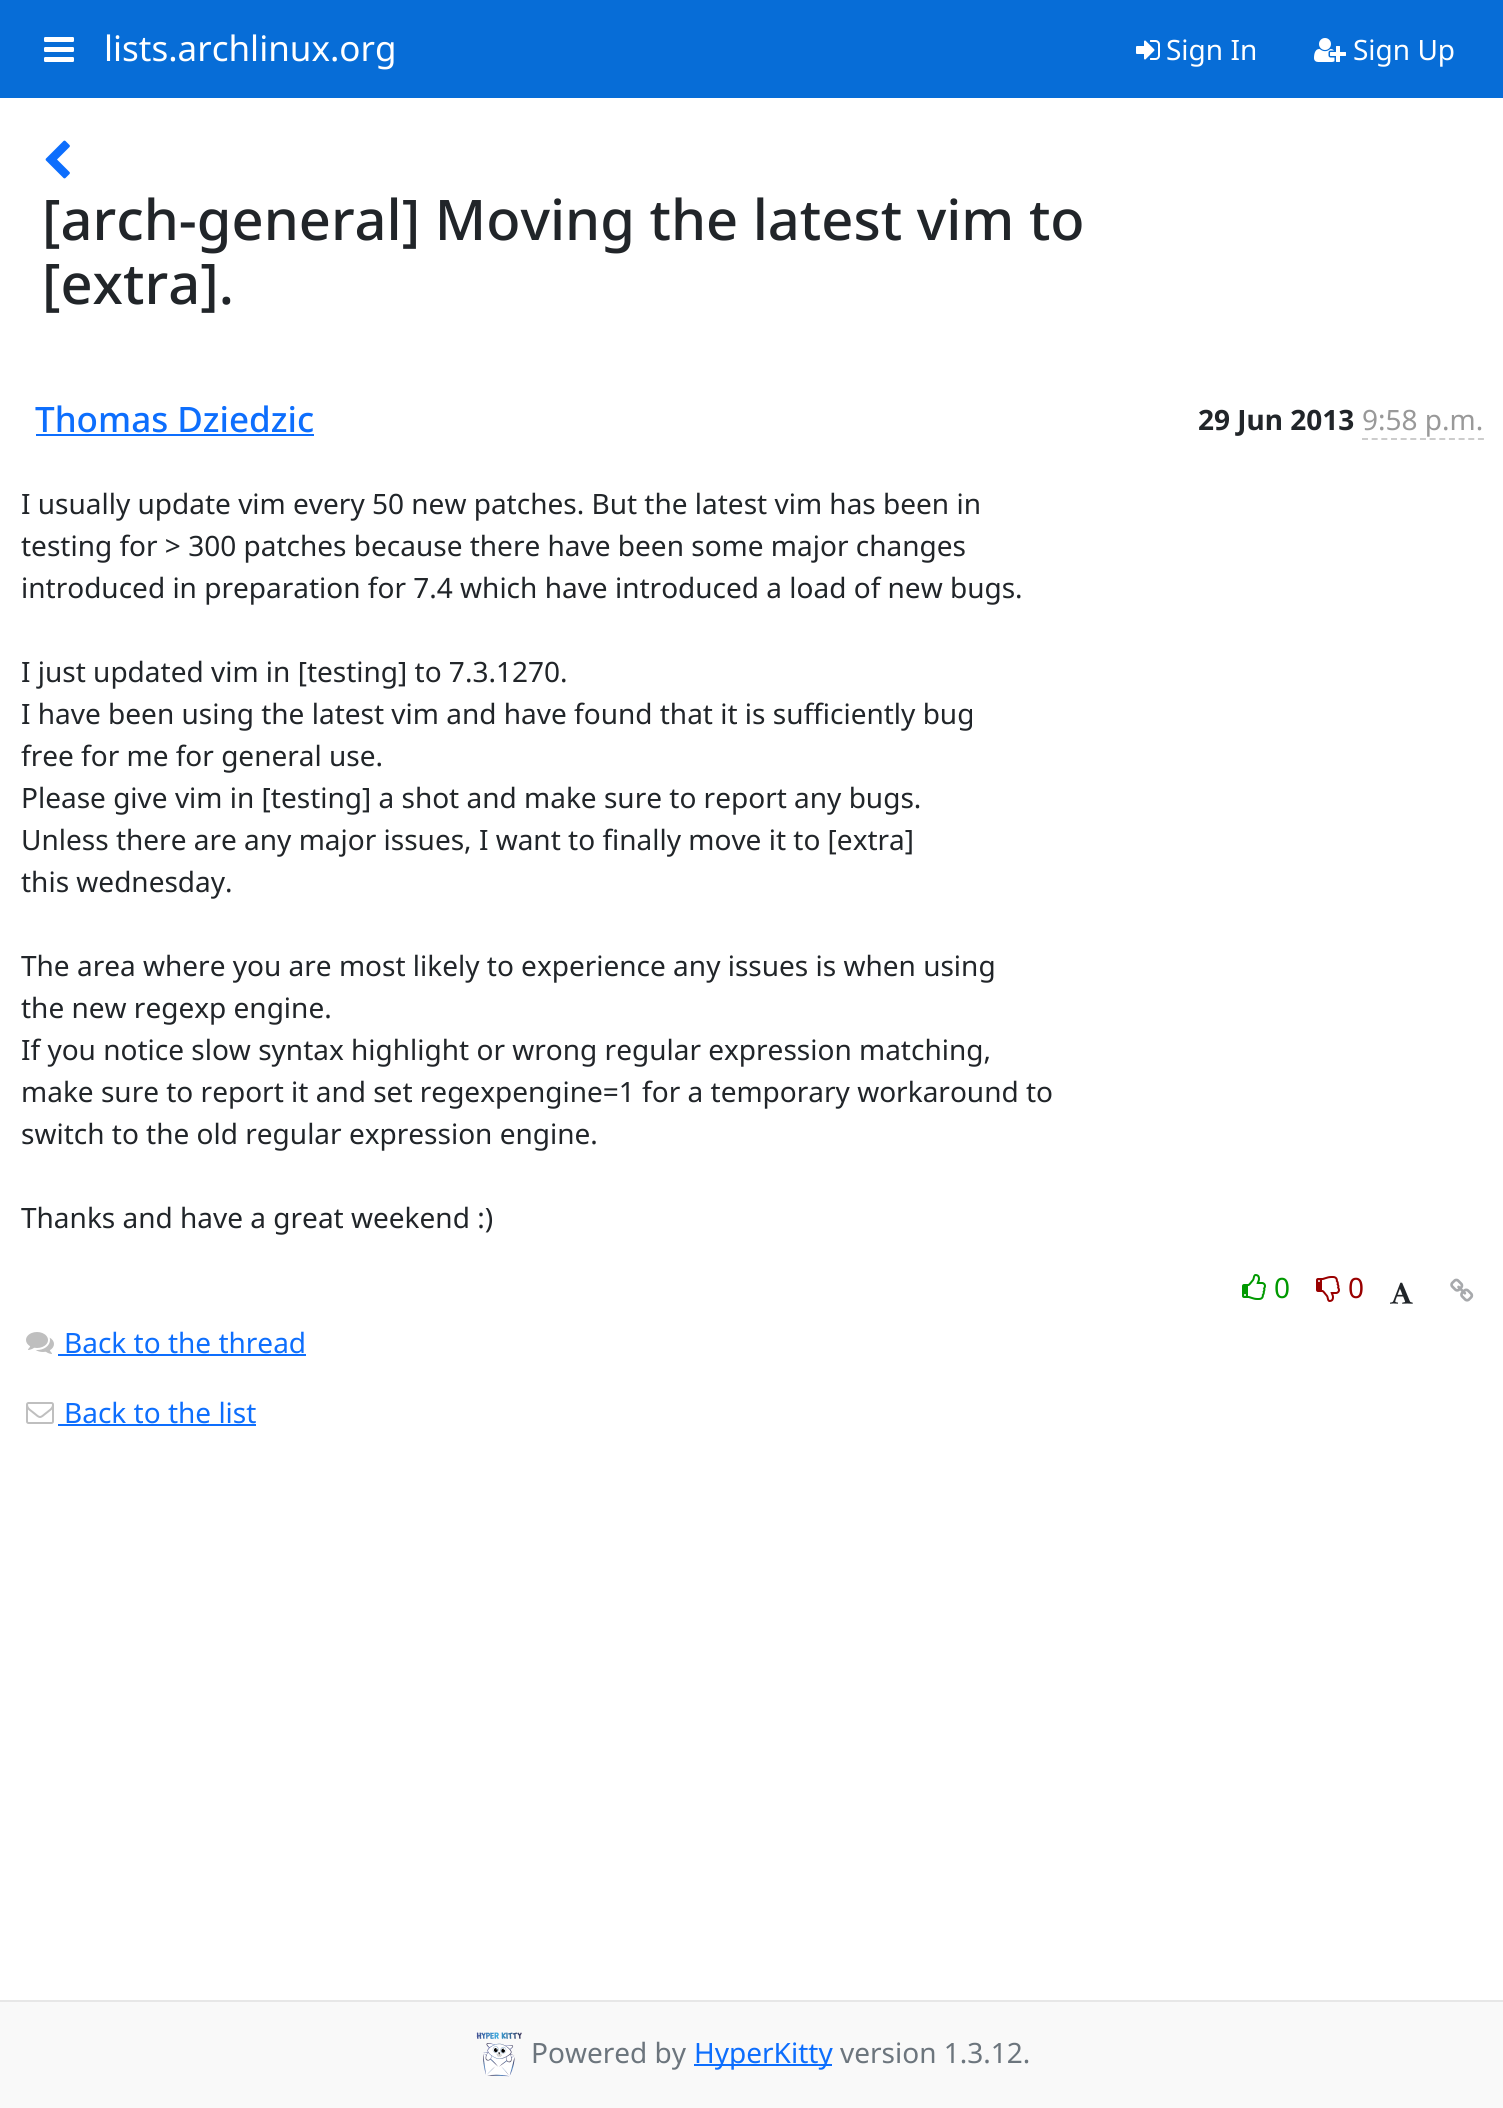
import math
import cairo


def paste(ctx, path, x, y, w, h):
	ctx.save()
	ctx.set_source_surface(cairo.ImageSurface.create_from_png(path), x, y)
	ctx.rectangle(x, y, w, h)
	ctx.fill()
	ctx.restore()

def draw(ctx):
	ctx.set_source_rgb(1, 1, 1)
	ctx.paint()
	ctx.set_source_rgb(0.031, 0.427, 0.843)
	ctx.rectangle(0, 0, 1503, 98)
	ctx.fill()
	paste(ctx, 'media/1.png', 44, 37, 30, 25)
	ctx.select_font_face('Noto Sans')
	ctx.set_font_size(35)
	ctx.set_source_rgb(1, 1, 1)
	ctx.move_to(104, 61)
	ctx.show_text('lists.archlinux.org')
	paste(ctx, 'media/2.png', 1136, 40, 24, 20)
	ctx.set_font_size(28)
	ctx.move_to(1166, 60)
	ctx.show_text('Sign In')
	paste(ctx, 'media/3.png', 1314, 38, 32, 24)
	ctx.move_to(1353, 60)
	ctx.show_text('Sign Up')
	paste(ctx, 'media/4.png', 45, 140, 25, 39)
	ctx.select_font_face('Noto Sans Medium')
	ctx.set_font_size(56)
	ctx.set_source_rgb(0.129, 0.145, 0.161)
	ctx.move_to(42, 240)
	ctx.show_text('[arch-general] Moving the latest vim to')
	ctx.move_to(42, 304)
	ctx.show_text('[extra].')
	ctx.set_font_size(35)
	ctx.set_source_rgb(0.051, 0.431, 0.992)
	ctx.move_to(35, 432)
	ctx.show_text('Thomas Dziedzic')
	ctx.rectangle(36, 434, 278, 2)
	ctx.fill()
	ctx.select_font_face('Noto Sans', cairo.FONT_SLANT_NORMAL, cairo.FONT_WEIGHT_BOLD)
	ctx.set_font_size(28)
	ctx.set_source_rgb(0.129, 0.145, 0.161)
	ctx.move_to(1198, 430)
	ctx.show_text('29 Jun 2013')
	ctx.select_font_face('Noto Sans')
	ctx.set_source_rgb(0.6, 0.6, 0.6)
	ctx.move_to(1362, 430)
	ctx.show_text('9:58 p.m.')
	ctx.new_path()
	ctx.move_to(1362, 439)
	ctx.line_to(1484, 439)
	ctx.set_source_rgb(0.8, 0.8, 0.8)
	ctx.set_dash([6, 3.66])
	ctx.stroke()
	ctx.set_source_rgb(0.129, 0.145, 0.161)
	for x, y, s in [
		(21, 514, 'I usually update vim every 50 new patches. But the latest vim has been in'),
		(21, 556, 'testing for > 300 patches because there have been some major changes'),
		(21, 598, 'introduced in preparation for 7.4 which have introduced a load of new bugs.'),
		(21, 682, 'I just updated vim in [testing] to 7.3.1270.'),
		(21, 724, 'I have been using the latest vim and have found that it is sufficiently bug'),
		(21, 766, 'free for me for general use.'),
		(21, 808, 'Please give vim in [testing] a shot and make sure to report any bugs.'),
		(21, 850, 'Unless there are any major issues, I want to finally move it to [extra]'),
		(21, 892, 'this wednesday.'),
		(21, 976, 'The area where you are most likely to experience any issues is when using'),
		(21, 1018, 'the new regexp engine.'),
		(21, 1060, 'If you notice slow syntax highlight or wrong regular expression matching,'),
		(21, 1102, 'make sure to report it and set regexpengine=1 for a temporary workaround to'),
		(21, 1144, 'switch to the old regular expression engine.'),
		(21, 1228, 'Thanks and have a great weekend :)'),
	]:
		ctx.move_to(x, y)
		ctx.show_text(s)
	paste(ctx, 'media/5.png', 1242, 1274, 24, 26)
	ctx.set_source_rgb(0, 0.6, 0)
	ctx.move_to(1274, 1298)
	ctx.show_text('0')
	paste(ctx, 'media/6.png', 1316, 1276, 24, 26)
	ctx.set_source_rgb(0.6, 0, 0)
	ctx.move_to(1348, 1298)
	ctx.show_text('0')
	paste(ctx, 'media/7.png', 1390, 1282, 23, 22)
	paste(ctx, 'media/8.png', 1450, 1278, 24, 24)
	paste(ctx, 'media/9.png', 26, 1332, 28, 22)
	ctx.set_source_rgb(0.051, 0.431, 0.992)
	ctx.move_to(64, 1353)
	ctx.show_text('Back to the thread')
	ctx.rectangle(58, 1354, 248, 2)
	ctx.fill()
	paste(ctx, 'media/10.png', 26, 1402, 28, 22)
	ctx.move_to(64, 1423)
	ctx.show_text('Back to the list')
	ctx.rectangle(58, 1424, 198, 2)
	ctx.fill()
	ctx.set_source_rgb(0.973, 0.973, 0.973)
	ctx.rectangle(0, 2002, 1503, 106)
	ctx.fill()
	ctx.set_source_rgb(0.906, 0.906, 0.906)
	ctx.rectangle(0, 2000, 1503, 2)
	ctx.fill()
	paste(ctx, 'media/11.png', 476, 2032, 46, 45)
	ctx.set_source_rgb(0.424, 0.459, 0.49)
	ctx.move_to(531, 2063)
	ctx.show_text('Powered by')
	ctx.set_source_rgb(0.051, 0.431, 0.992)
	ctx.rectangle(694, 2064, 138, 2)
	ctx.fill()
	ctx.move_to(694, 2063)
	ctx.show_text('HyperKitty')
	ctx.set_source_rgb(0.424, 0.459, 0.49)
	ctx.move_to(840, 2063)
	ctx.show_text('version 1.3.12.')


surface = cairo.ImageSurface(cairo.FORMAT_RGB24, 1503, 2108)
ctx = cairo.Context(surface)
options = cairo.FontOptions()
options.set_hint_metrics(cairo.HINT_METRICS_OFF)
options.set_hint_style(cairo.HINT_STYLE_NONE)
ctx.set_font_options(options)
ctx.set_miter_limit(4)
draw(ctx)
surface.write_to_png('image.png')
